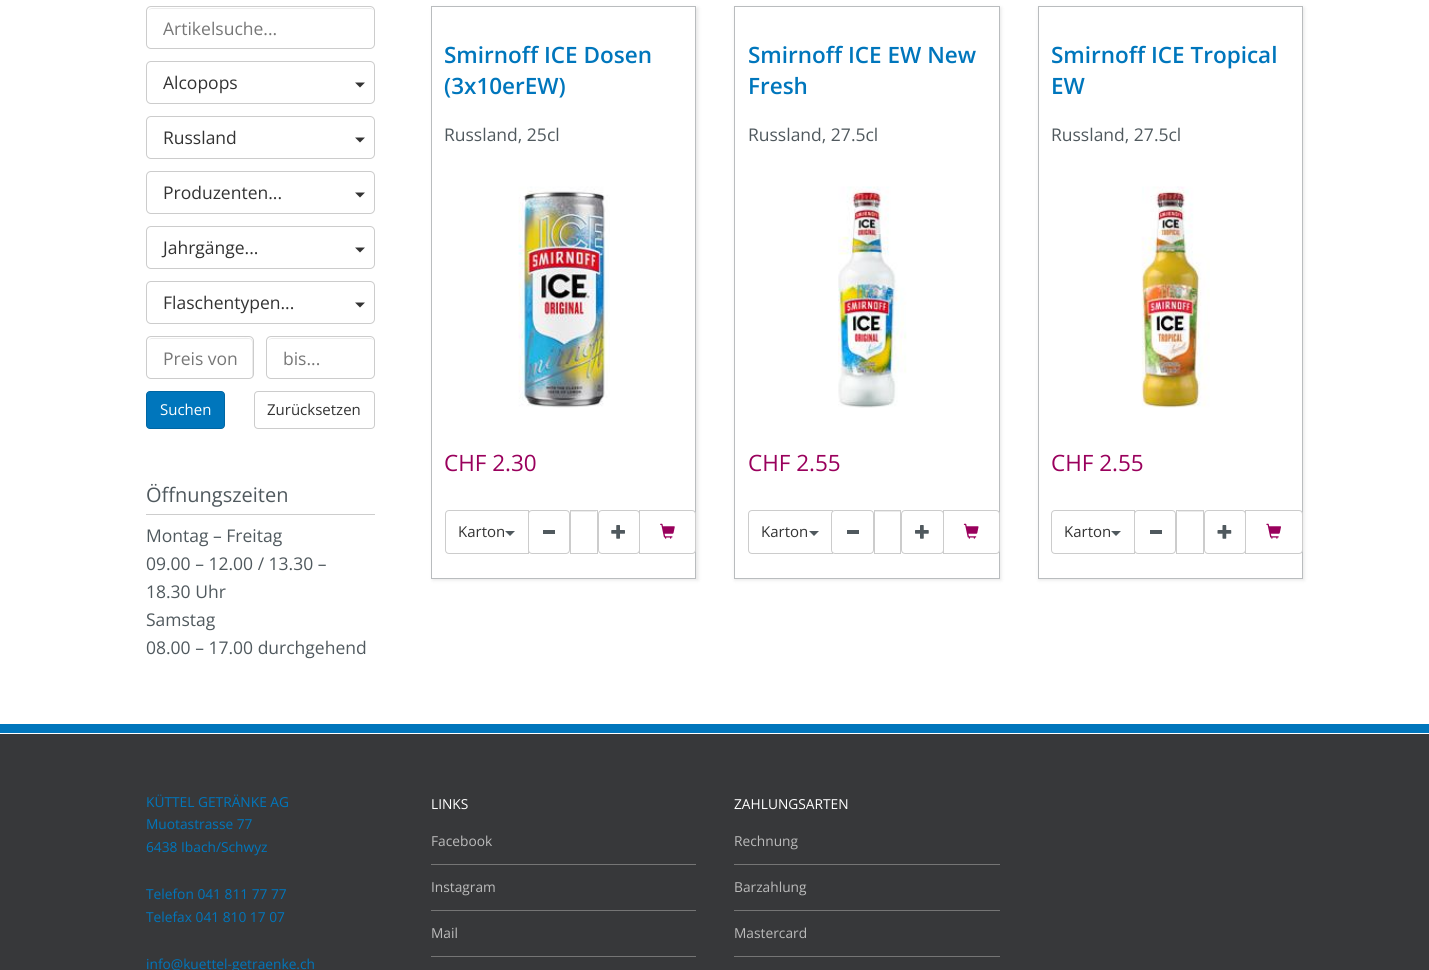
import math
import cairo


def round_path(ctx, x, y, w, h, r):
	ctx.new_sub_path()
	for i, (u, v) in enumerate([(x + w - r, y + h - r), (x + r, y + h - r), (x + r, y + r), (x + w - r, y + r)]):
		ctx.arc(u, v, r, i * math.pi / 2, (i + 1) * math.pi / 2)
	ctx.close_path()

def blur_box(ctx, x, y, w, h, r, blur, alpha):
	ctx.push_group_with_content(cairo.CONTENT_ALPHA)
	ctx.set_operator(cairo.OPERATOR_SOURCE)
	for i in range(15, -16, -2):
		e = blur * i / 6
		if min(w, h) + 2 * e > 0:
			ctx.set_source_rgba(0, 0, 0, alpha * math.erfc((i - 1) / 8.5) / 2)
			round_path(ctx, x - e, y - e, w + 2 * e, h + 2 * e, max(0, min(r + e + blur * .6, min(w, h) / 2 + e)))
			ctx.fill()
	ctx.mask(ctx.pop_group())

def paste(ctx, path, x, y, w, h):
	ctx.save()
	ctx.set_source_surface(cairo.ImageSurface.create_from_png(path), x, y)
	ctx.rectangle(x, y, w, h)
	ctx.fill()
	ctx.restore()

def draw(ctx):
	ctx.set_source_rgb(1, 1, 1)
	ctx.paint()
	ctx.set_source_rgb(0.925, 0.925, 0.925)
	ctx.new_path()
	ctx.move_to(151, 9)
	ctx.line_to(370, 9)
	ctx.curve_to(372, 9, 374, 10, 374, 12)
	ctx.curve_to(374, 10, 372, 8, 370, 8)
	ctx.line_to(152, 8)
	ctx.curve_to(151, 8, 149, 9, 149, 10)
	ctx.close_path()
	ctx.fill()
	round_path(ctx, 146.5, 6.5, 228, 42, 4.5)
	ctx.set_source_rgb(0.8, 0.8, 0.8)
	ctx.set_line_width(1)
	ctx.stroke()
	ctx.select_font_face('Open Sans')
	ctx.set_font_size(17.5)
	ctx.set_source_rgb(0.467, 0.467, 0.467)
	ctx.move_to(163, 35)
	ctx.show_text('Artikelsuche...')
	round_path(ctx, 146.5, 61.5, 228, 42, 4.5)
	ctx.set_source_rgb(0.8, 0.8, 0.8)
	ctx.stroke()
	ctx.set_source_rgb(0.2, 0.2, 0.2)
	ctx.move_to(163, 89)
	ctx.show_text('Alcopops')
	round_path(ctx, 146.5, 116.5, 228, 42, 4.5)
	ctx.set_source_rgb(0.8, 0.8, 0.8)
	ctx.stroke()
	ctx.set_source_rgb(0.2, 0.2, 0.2)
	ctx.new_path()
	ctx.move_to(355, 82.5)
	ctx.line_to(365, 82.5)
	ctx.line_to(360, 87.5)
	ctx.close_path()
	ctx.move_to(355, 137.5)
	ctx.line_to(365, 137.5)
	ctx.line_to(360, 142.5)
	ctx.close_path()
	ctx.fill()
	ctx.move_to(163, 144)
	ctx.show_text('Russland')
	round_path(ctx, 146.5, 171.5, 228, 42, 4.5)
	ctx.set_source_rgb(0.8, 0.8, 0.8)
	ctx.stroke()
	ctx.set_source_rgb(0.2, 0.2, 0.2)
	ctx.move_to(163, 199)
	ctx.show_text('Produzenten...')
	round_path(ctx, 146.5, 226.5, 228, 42, 4.5)
	ctx.set_source_rgb(0.8, 0.8, 0.8)
	ctx.stroke()
	ctx.set_source_rgb(0.2, 0.2, 0.2)
	ctx.new_path()
	ctx.move_to(355, 192.5)
	ctx.line_to(365, 192.5)
	ctx.line_to(360, 197.5)
	ctx.close_path()
	ctx.move_to(355, 247.5)
	ctx.line_to(365, 247.5)
	ctx.line_to(360, 252.5)
	ctx.close_path()
	ctx.fill()
	ctx.move_to(163, 254)
	ctx.show_text('Jahrgänge...')
	round_path(ctx, 146.5, 281.5, 228, 42, 4.5)
	ctx.set_source_rgb(0.8, 0.8, 0.8)
	ctx.stroke()
	ctx.set_source_rgb(0.2, 0.2, 0.2)
	ctx.move_to(163, 309)
	ctx.show_text('Flaschentypen...')
	ctx.new_path()
	ctx.move_to(355, 302.5)
	ctx.line_to(365, 302.5)
	ctx.line_to(360, 307.5)
	ctx.close_path()
	ctx.fill()
	ctx.set_source_rgb(0.925, 0.925, 0.925)
	ctx.new_path()
	ctx.move_to(151, 339)
	ctx.line_to(249, 339)
	ctx.curve_to(253, 339, 252, 345, 252, 348)
	ctx.line_to(252, 377)
	ctx.curve_to(254, 375, 253, 371, 253, 369)
	ctx.line_to(253, 358)
	ctx.curve_to(253, 335, 257, 338, 233, 338)
	ctx.line_to(151, 338)
	ctx.line_to(149, 340)
	ctx.close_path()
	ctx.fill()
	round_path(ctx, 146.5, 336.5, 107, 42, 4.5)
	ctx.set_source_rgb(0.8, 0.8, 0.8)
	ctx.stroke()
	ctx.set_source_rgb(0.467, 0.467, 0.467)
	ctx.move_to(163, 365)
	ctx.show_text('Preis von')
	ctx.set_source_rgb(0.925, 0.925, 0.925)
	ctx.new_path()
	ctx.move_to(271, 339)
	ctx.line_to(370, 339)
	ctx.curve_to(372, 339, 374, 340, 374, 342)
	ctx.curve_to(374, 340, 372, 338, 370, 338)
	ctx.line_to(272, 338)
	ctx.curve_to(271, 338, 269, 339, 269, 340)
	ctx.close_path()
	ctx.fill()
	round_path(ctx, 266.5, 336.5, 108, 42, 4.5)
	ctx.set_source_rgb(0.8, 0.8, 0.8)
	ctx.stroke()
	ctx.set_source_rgb(0.467, 0.467, 0.467)
	ctx.move_to(283, 365)
	ctx.show_text('bis...')
	ctx.set_source_rgb(0, 0.463, 0.737)
	round_path(ctx, 146.5, 391.5, 78, 37, 3.5)
	ctx.fill_preserve()
	ctx.set_source_rgb(0, 0.4, 0.639)
	ctx.stroke()
	ctx.set_font_size(15)
	ctx.set_source_rgb(1, 1, 1)
	ctx.move_to(160, 415)
	ctx.show_text('Suchen')
	round_path(ctx, 254.5, 391.5, 120, 37, 3.5)
	ctx.set_source_rgb(0.8, 0.8, 0.8)
	ctx.stroke()
	ctx.set_source_rgb(0.2, 0.2, 0.2)
	ctx.move_to(267, 415)
	ctx.show_text('Zurücksetzen')
	ctx.set_source_rgb(0.804, 0.804, 0.804)
	ctx.rectangle(146, 514, 229, 1)
	ctx.fill()
	ctx.set_font_size(20)
	ctx.set_source_rgb(0.314, 0.349, 0.369)
	ctx.move_to(146, 502)
	ctx.show_text('Öffnungszeiten')
	ctx.set_font_size(17.5)
	for x, y, s in [
		(146, 542, 'Montag – Freitag'),
		(146, 570, '09.00 – 12.00 / 13.30 –'),
		(146, 598, '18.30 Uhr'),
		(146, 626, 'Samstag'),
		(146, 654, '08.00 – 17.00 durchgehend'),
	]:
		ctx.move_to(x, y)
		ctx.show_text(s)
	ctx.save()
	ctx.set_fill_rule(cairo.FILL_RULE_EVEN_ODD)
	ctx.new_path()
	ctx.move_to(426, 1)
	ctx.line_to(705, 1)
	ctx.line_to(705, 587)
	ctx.line_to(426, 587)
	ctx.close_path()
	ctx.move_to(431, 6)
	ctx.line_to(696, 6)
	ctx.line_to(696, 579)
	ctx.line_to(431, 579)
	ctx.close_path()
	ctx.clip()
	ctx.set_source_rgb(0, 0, 0)
	blur_box(ctx, 433, 8, 265, 572, 0, 2, 0.1)
	ctx.restore()
	ctx.rectangle(431.5, 6.5, 264, 572)
	ctx.set_source_rgba(0.314, 0.349, 0.369, 0.4)
	ctx.stroke()
	ctx.select_font_face('Open Sans SemiBold')
	ctx.set_font_size(22.5)
	ctx.set_source_rgb(0, 0.463, 0.737)
	ctx.move_to(444, 63)
	ctx.show_text('Smirnoff ICE Dosen')
	ctx.move_to(444, 94)
	ctx.show_text('(3x10erEW)')
	ctx.select_font_face('Open Sans')
	ctx.set_font_size(17.5)
	ctx.set_source_rgb(0.314, 0.349, 0.369)
	ctx.move_to(444, 141)
	ctx.show_text('Russland, 25cl')
	paste(ctx, 'media/1.png', 518, 186, 92, 222)
	ctx.set_font_size(22.5)
	ctx.set_source_rgb(0.6, 0, 0.361)
	ctx.move_to(444, 471)
	ctx.show_text('CHF 2.30')
	ctx.new_path()
	ctx.move_to(449, 510.5)
	ctx.line_to(528.5, 510.5)
	ctx.line_to(528.5, 553.5)
	ctx.line_to(449, 553.5)
	ctx.curve_to(447, 553.5, 445.5, 552, 445.5, 550)
	ctx.line_to(445.5, 514)
	ctx.curve_to(445.5, 512, 447, 510.5, 449, 510.5)
	ctx.close_path()
	ctx.set_source_rgb(0.8, 0.8, 0.8)
	ctx.stroke()
	ctx.set_font_size(15)
	ctx.set_source_rgb(0.2, 0.2, 0.2)
	ctx.move_to(458, 537)
	ctx.show_text('Karton')
	ctx.set_source_rgb(0.314, 0.349, 0.369)
	ctx.new_path()
	ctx.move_to(505, 531)
	ctx.line_to(515, 531)
	ctx.line_to(510, 536)
	ctx.close_path()
	ctx.fill()
	ctx.set_source_rgb(1, 1, 1)
	round_path(ctx, 528.5, 510.5, 41, 43, 3.5)
	ctx.fill_preserve()
	ctx.set_source_rgb(0.8, 0.8, 0.8)
	ctx.stroke()
	ctx.set_source_rgb(0.314, 0.349, 0.369)
	ctx.rectangle(543, 530, 12, 4)
	ctx.fill()
	ctx.set_source_rgb(0.925, 0.925, 0.925)
	ctx.rectangle(571, 511, 25, 1)
	ctx.fill()
	ctx.rectangle(570.5, 510.5, 27, 43)
	ctx.set_source_rgb(0.8, 0.8, 0.8)
	ctx.stroke()
	round_path(ctx, 598.5, 510.5, 41, 43, 3.5)
	ctx.stroke()
	paste(ctx, 'media/2.png', 611, 525, 14, 14)
	ctx.set_source_rgb(1, 1, 1)
	ctx.new_path()
	ctx.move_to(639.5, 510.5)
	ctx.line_to(692, 510.5)
	ctx.curve_to(694, 510.5, 695.5, 512, 695.5, 514)
	ctx.line_to(695.5, 550)
	ctx.curve_to(695.5, 552, 694, 553.5, 692, 553.5)
	ctx.line_to(639.5, 553.5)
	ctx.close_path()
	ctx.fill_preserve()
	ctx.set_source_rgb(0.8, 0.8, 0.8)
	ctx.stroke()
	paste(ctx, 'media/3.png', 660, 523, 15, 16)
	ctx.save()
	ctx.set_fill_rule(cairo.FILL_RULE_EVEN_ODD)
	ctx.new_path()
	ctx.move_to(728, 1)
	ctx.line_to(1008, 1)
	ctx.line_to(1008, 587)
	ctx.line_to(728, 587)
	ctx.close_path()
	ctx.move_to(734, 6)
	ctx.line_to(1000, 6)
	ctx.line_to(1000, 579)
	ctx.line_to(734, 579)
	ctx.close_path()
	ctx.clip()
	ctx.set_source_rgb(0, 0, 0)
	blur_box(ctx, 735, 8, 266, 572, 0, 2, 0.1)
	ctx.restore()
	ctx.rectangle(734.5, 6.5, 265, 572)
	ctx.set_source_rgba(0.314, 0.349, 0.369, 0.4)
	ctx.stroke()
	ctx.select_font_face('Open Sans SemiBold')
	ctx.set_font_size(22.5)
	ctx.set_source_rgb(0, 0.463, 0.737)
	ctx.move_to(748, 63)
	ctx.show_text('Smirnoff ICE EW New')
	ctx.move_to(748, 94)
	ctx.show_text('Fresh')
	ctx.select_font_face('Open Sans')
	ctx.set_font_size(17.5)
	ctx.set_source_rgb(0.314, 0.349, 0.369)
	ctx.move_to(748, 141)
	ctx.show_text('Russland, 27.5cl')
	paste(ctx, 'media/4.png', 838, 186, 69, 222)
	ctx.set_font_size(22.5)
	ctx.set_source_rgb(0.6, 0, 0.361)
	ctx.move_to(748, 471)
	ctx.show_text('CHF 2.55')
	ctx.new_path()
	ctx.move_to(752, 510.5)
	ctx.line_to(832.5, 510.5)
	ctx.line_to(832.5, 553.5)
	ctx.line_to(752, 553.5)
	ctx.curve_to(750, 553.5, 748.5, 552, 748.5, 550)
	ctx.line_to(748.5, 514)
	ctx.curve_to(748.5, 512, 750, 510.5, 752, 510.5)
	ctx.close_path()
	ctx.set_source_rgb(0.8, 0.8, 0.8)
	ctx.stroke()
	ctx.set_font_size(15)
	ctx.set_source_rgb(0.2, 0.2, 0.2)
	ctx.move_to(761, 537)
	ctx.show_text('Karton')
	ctx.set_source_rgb(0.314, 0.349, 0.369)
	ctx.new_path()
	ctx.move_to(809, 531)
	ctx.line_to(819, 531)
	ctx.line_to(814, 536)
	ctx.close_path()
	ctx.fill()
	ctx.set_source_rgb(1, 1, 1)
	round_path(ctx, 831.5, 510.5, 42, 43, 3.5)
	ctx.fill_preserve()
	ctx.set_source_rgb(0.8, 0.8, 0.8)
	ctx.stroke()
	ctx.set_source_rgb(0.314, 0.349, 0.369)
	ctx.rectangle(847, 530, 12, 4)
	ctx.fill()
	ctx.set_source_rgb(0.925, 0.925, 0.925)
	ctx.rectangle(875, 511, 25, 1)
	ctx.fill()
	ctx.rectangle(874.5, 510.5, 26, 43)
	ctx.set_source_rgb(0.8, 0.8, 0.8)
	ctx.stroke()
	round_path(ctx, 901.5, 510.5, 42, 43, 3.5)
	ctx.stroke()
	paste(ctx, 'media/5.png', 915, 525, 14, 14)
	ctx.set_source_rgb(1, 1, 1)
	ctx.new_path()
	ctx.move_to(943.5, 510.5)
	ctx.line_to(996, 510.5)
	ctx.curve_to(998, 510.5, 999.5, 512, 999.5, 514)
	ctx.line_to(999.5, 550)
	ctx.curve_to(999.5, 552, 998, 553.5, 996, 553.5)
	ctx.line_to(943.5, 553.5)
	ctx.close_path()
	ctx.fill_preserve()
	ctx.set_source_rgb(0.8, 0.8, 0.8)
	ctx.stroke()
	paste(ctx, 'media/6.png', 963, 523, 16, 16)
	ctx.save()
	ctx.set_fill_rule(cairo.FILL_RULE_EVEN_ODD)
	ctx.new_path()
	ctx.move_to(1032, 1)
	ctx.line_to(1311, 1)
	ctx.line_to(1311, 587)
	ctx.line_to(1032, 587)
	ctx.close_path()
	ctx.move_to(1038, 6)
	ctx.line_to(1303, 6)
	ctx.line_to(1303, 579)
	ctx.line_to(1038, 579)
	ctx.close_path()
	ctx.clip()
	ctx.set_source_rgb(0, 0, 0)
	blur_box(ctx, 1039, 8, 265, 572, 0, 2, 0.1)
	ctx.restore()
	ctx.rectangle(1038.5, 6.5, 264, 572)
	ctx.set_source_rgba(0.314, 0.349, 0.369, 0.4)
	ctx.stroke()
	ctx.select_font_face('Open Sans SemiBold')
	ctx.set_font_size(22.5)
	ctx.set_source_rgb(0, 0.463, 0.737)
	ctx.move_to(1051, 63)
	ctx.show_text('Smirnoff ICE Tropical')
	ctx.move_to(1051, 94)
	ctx.show_text('EW')
	ctx.select_font_face('Open Sans')
	ctx.set_font_size(17.5)
	ctx.set_source_rgb(0.314, 0.349, 0.369)
	ctx.move_to(1051, 141)
	ctx.show_text('Russland, 27.5cl')
	paste(ctx, 'media/7.png', 1141, 186, 69, 222)
	ctx.set_font_size(22.5)
	ctx.set_source_rgb(0.6, 0, 0.361)
	ctx.move_to(1051, 471)
	ctx.show_text('CHF 2.55')
	ctx.new_path()
	ctx.move_to(1055, 510.5)
	ctx.line_to(1134.5, 510.5)
	ctx.line_to(1134.5, 553.5)
	ctx.line_to(1055, 553.5)
	ctx.curve_to(1053, 553.5, 1051.5, 552, 1051.5, 550)
	ctx.line_to(1051.5, 514)
	ctx.curve_to(1051.5, 512, 1053, 510.5, 1055, 510.5)
	ctx.close_path()
	ctx.set_source_rgb(0.8, 0.8, 0.8)
	ctx.stroke()
	ctx.set_font_size(15)
	ctx.set_source_rgb(0.2, 0.2, 0.2)
	ctx.move_to(1064, 537)
	ctx.show_text('Karton')
	ctx.set_source_rgb(0.314, 0.349, 0.369)
	ctx.new_path()
	ctx.move_to(1111, 531)
	ctx.line_to(1121, 531)
	ctx.line_to(1116, 536)
	ctx.close_path()
	ctx.fill()
	ctx.set_source_rgb(1, 1, 1)
	round_path(ctx, 1134.5, 510.5, 41, 43, 3.5)
	ctx.fill_preserve()
	ctx.set_source_rgb(0.8, 0.8, 0.8)
	ctx.stroke()
	ctx.set_source_rgb(0.314, 0.349, 0.369)
	ctx.rectangle(1150, 530, 12, 4)
	ctx.fill()
	ctx.set_source_rgb(0.925, 0.925, 0.925)
	ctx.rectangle(1178, 511, 25, 1)
	ctx.fill()
	ctx.rectangle(1176.5, 510.5, 27, 43)
	ctx.set_source_rgb(0.8, 0.8, 0.8)
	ctx.stroke()
	round_path(ctx, 1204.5, 510.5, 41, 43, 3.5)
	ctx.stroke()
	paste(ctx, 'media/8.png', 1217, 525, 15, 14)
	ctx.set_source_rgb(1, 1, 1)
	ctx.new_path()
	ctx.move_to(1245.5, 510.5)
	ctx.line_to(1299, 510.5)
	ctx.curve_to(1301, 510.5, 1302.5, 512, 1302.5, 514)
	ctx.line_to(1302.5, 550)
	ctx.curve_to(1302.5, 552, 1301, 553.5, 1299, 553.5)
	ctx.line_to(1245.5, 553.5)
	ctx.close_path()
	ctx.fill_preserve()
	ctx.set_source_rgb(0.8, 0.8, 0.8)
	ctx.stroke()
	paste(ctx, 'media/9.png', 1266, 523, 15, 16)
	ctx.set_source_rgb(0, 0.463, 0.737)
	ctx.rectangle(0, 724, 1429, 9)
	ctx.fill()
	ctx.set_source_rgb(0.216, 0.22, 0.227)
	ctx.rectangle(0, 734, 1429, 236)
	ctx.fill()
	ctx.set_font_size(13.75)
	ctx.set_source_rgb(0, 0.463, 0.737)
	for x, y, s in [
		(146, 807, 'KÜTTEL GETRÄNKE AG'),
		(146, 829, 'Muotastrasse 77'),
		(146, 852, '6438 Ibach/Schwyz'),
		(146, 899, 'Telefon 041 811 77 77'),
		(146, 922, 'Telefax 041 810 17 07'),
		(146, 969, 'info@kuettel-getraenke.ch'),
	]:
		ctx.move_to(x, y)
		ctx.show_text(s)
	ctx.set_source_rgb(1, 1, 1)
	ctx.move_to(431, 809)
	ctx.show_text('LINKS')
	ctx.set_source_rgb(0.459, 0.459, 0.459)
	ctx.rectangle(431, 864, 265, 1)
	ctx.fill()
	ctx.set_source_rgb(0.733, 0.733, 0.733)
	ctx.move_to(431, 846)
	ctx.show_text('Facebook')
	ctx.set_source_rgb(0.459, 0.459, 0.459)
	ctx.rectangle(431, 910, 265, 1)
	ctx.fill()
	ctx.set_source_rgb(0.733, 0.733, 0.733)
	ctx.move_to(431, 892)
	ctx.show_text('Instagram')
	ctx.set_source_rgb(0.459, 0.459, 0.459)
	ctx.rectangle(431, 956, 265, 1)
	ctx.fill()
	ctx.set_source_rgb(0.733, 0.733, 0.733)
	ctx.move_to(431, 938)
	ctx.show_text('Mail')
	ctx.set_source_rgb(1, 1, 1)
	ctx.move_to(734, 809)
	ctx.show_text('ZAHLUNGSARTEN')
	ctx.set_source_rgb(0.459, 0.459, 0.459)
	ctx.rectangle(734, 864, 266, 1)
	ctx.fill()
	ctx.set_source_rgb(0.733, 0.733, 0.733)
	ctx.move_to(734, 846)
	ctx.show_text('Rechnung')
	ctx.set_source_rgb(0.459, 0.459, 0.459)
	ctx.rectangle(734, 910, 266, 1)
	ctx.fill()
	ctx.set_source_rgb(0.733, 0.733, 0.733)
	ctx.move_to(734, 892)
	ctx.show_text('Barzahlung')
	ctx.set_source_rgb(0.459, 0.459, 0.459)
	ctx.rectangle(734, 956, 266, 1)
	ctx.fill()
	ctx.set_source_rgb(0.733, 0.733, 0.733)
	ctx.move_to(734, 938)
	ctx.show_text('Mastercard')


surface = cairo.ImageSurface(cairo.FORMAT_RGB24, 1429, 970)
ctx = cairo.Context(surface)
options = cairo.FontOptions()
options.set_hint_metrics(cairo.HINT_METRICS_OFF)
options.set_hint_style(cairo.HINT_STYLE_NONE)
ctx.set_font_options(options)
ctx.set_miter_limit(4)
draw(ctx)
surface.write_to_png('image.png')
